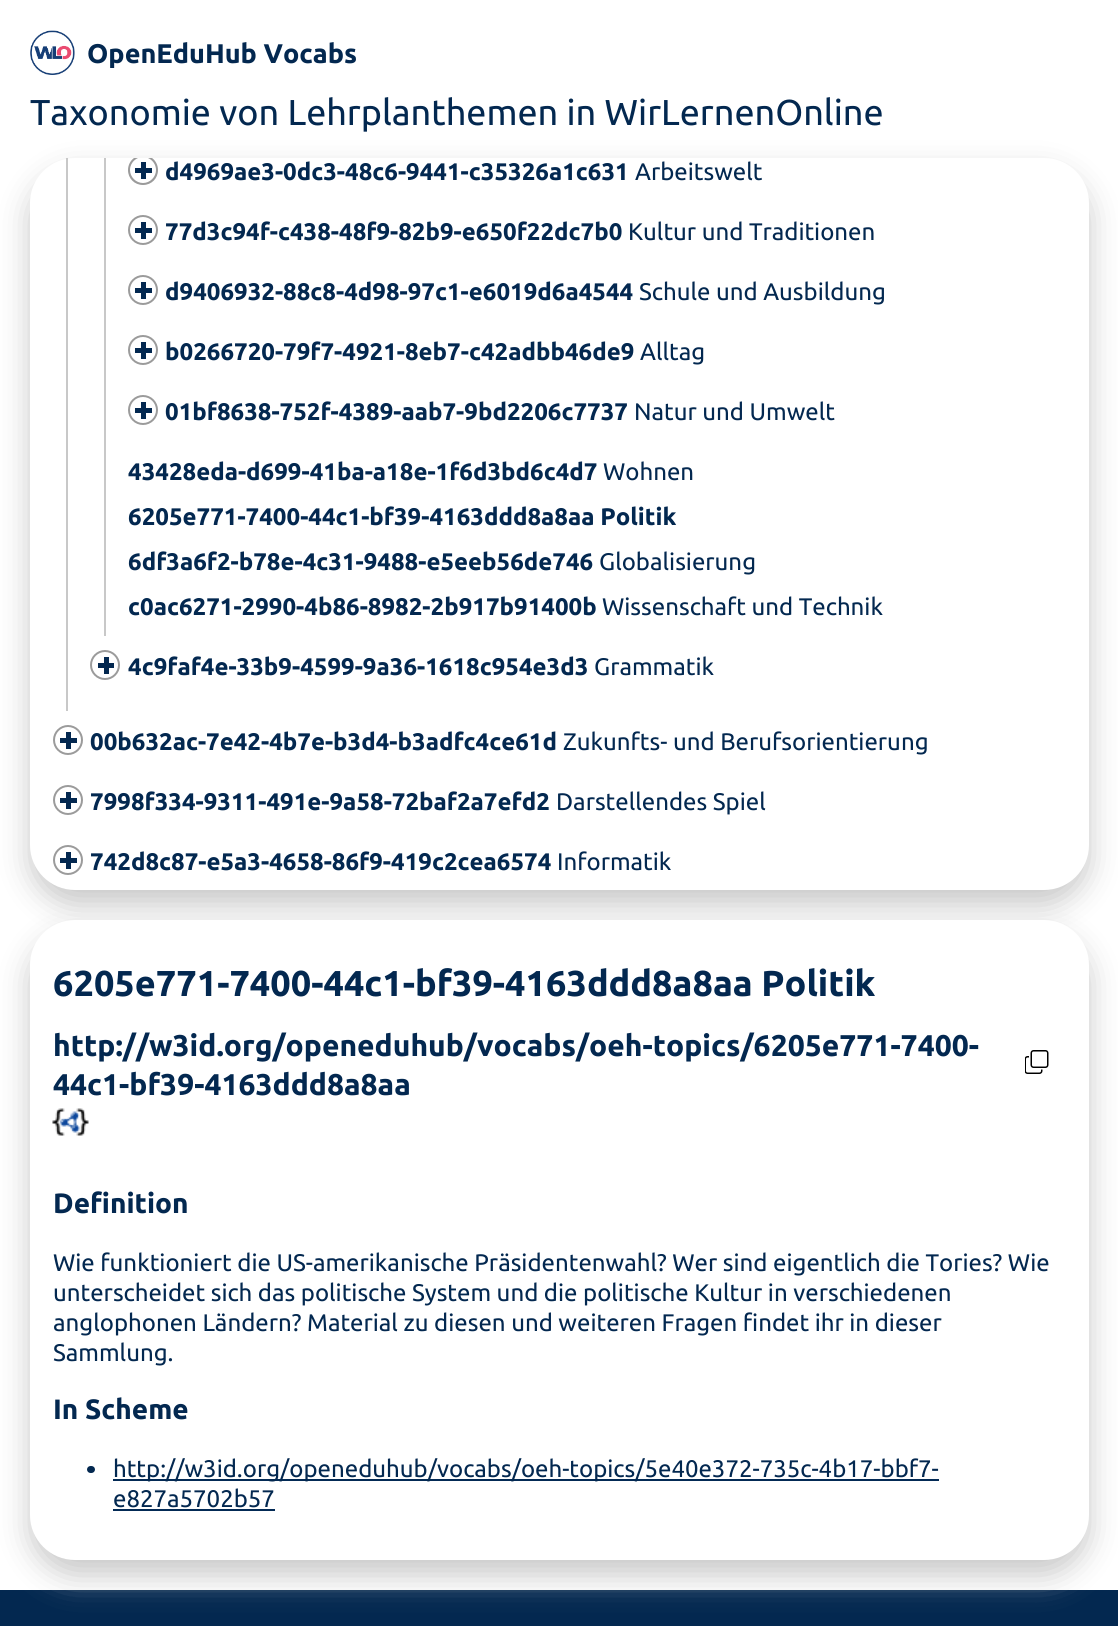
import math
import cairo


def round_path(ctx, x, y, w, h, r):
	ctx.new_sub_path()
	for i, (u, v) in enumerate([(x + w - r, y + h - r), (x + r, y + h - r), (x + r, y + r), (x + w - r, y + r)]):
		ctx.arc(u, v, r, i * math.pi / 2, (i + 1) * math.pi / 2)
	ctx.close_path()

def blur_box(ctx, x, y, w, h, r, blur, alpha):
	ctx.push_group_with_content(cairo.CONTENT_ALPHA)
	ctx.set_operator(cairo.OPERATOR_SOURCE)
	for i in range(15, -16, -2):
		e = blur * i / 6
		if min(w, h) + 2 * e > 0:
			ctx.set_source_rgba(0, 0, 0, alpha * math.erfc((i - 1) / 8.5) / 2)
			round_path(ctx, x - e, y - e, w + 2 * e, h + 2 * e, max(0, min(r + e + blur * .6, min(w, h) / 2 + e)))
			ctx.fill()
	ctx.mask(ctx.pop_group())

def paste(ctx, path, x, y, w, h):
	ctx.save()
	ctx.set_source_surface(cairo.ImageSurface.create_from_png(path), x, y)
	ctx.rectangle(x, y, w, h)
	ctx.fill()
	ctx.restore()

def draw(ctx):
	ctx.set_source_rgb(1, 1, 1)
	ctx.paint()
	paste(ctx, 'media/1.png', 30, 30, 45, 45)
	ctx.select_font_face('Ubuntu', cairo.FONT_SLANT_NORMAL, cairo.FONT_WEIGHT_BOLD)
	ctx.set_font_size(27)
	ctx.set_source_rgb(0.012, 0.157, 0.314)
	ctx.move_to(87, 63)
	ctx.show_text('OpenEduHub Vocabs')
	ctx.select_font_face('Ubuntu')
	ctx.set_font_size(36)
	ctx.move_to(30, 125)
	ctx.show_text('Taxonomie von Lehrplanthemen in WirLernenOnline')
	ctx.set_source_rgb(0.784, 0.784, 0.784)
	blur_box(ctx, 30, 173, 1059, 732, 45, 15, 1)
	ctx.set_source_rgb(1, 1, 1)
	round_path(ctx, 30, 158, 1059, 732, 45)
	ctx.fill()
	ctx.set_source_rgb(0.784, 0.784, 0.784)
	ctx.rectangle(66, 158, 2, 553)
	ctx.fill()
	ctx.rectangle(104, 158, 2, 478)
	ctx.fill()
	ctx.set_source_rgb(0.608, 0.608, 0.608)
	ctx.new_path()
	ctx.move_to(152, 158)
	ctx.curve_to(155.5, 160.5, 158, 165, 158, 170)
	ctx.curve_to(158, 178.5, 151.5, 185, 143, 185)
	ctx.curve_to(134.5, 185, 128, 178.5, 128, 170)
	ctx.curve_to(128, 165, 130.5, 160.5, 134, 158)
	ctx.line_to(138, 158)
	ctx.curve_to(133.5, 160, 130, 164.5, 130, 170)
	ctx.curve_to(130, 177, 136, 183, 143, 183)
	ctx.curve_to(150, 183, 156, 177, 156, 170)
	ctx.curve_to(156, 164.5, 152.5, 160, 148, 158)
	ctx.close_path()
	ctx.fill()
	ctx.set_source_rgb(0.012, 0.157, 0.314)
	ctx.rectangle(135, 168, 17, 5)
	ctx.fill()
	ctx.rectangle(141, 162, 5, 17)
	ctx.fill()
	ctx.select_font_face('Ubuntu', cairo.FONT_SLANT_NORMAL, cairo.FONT_WEIGHT_BOLD)
	ctx.set_font_size(24)
	ctx.move_to(165, 180)
	ctx.show_text('d4969ae3-0dc3-48c6-9441-c35326a1c631')
	ctx.select_font_face('Ubuntu')
	ctx.move_to(635, 180)
	ctx.show_text('Arbeitswelt')
	ctx.new_path()
	ctx.arc(143, 230, 14, 0, 2 * math.pi)
	ctx.set_source_rgb(0.608, 0.608, 0.608)
	ctx.stroke()
	ctx.set_source_rgb(0.012, 0.157, 0.314)
	ctx.rectangle(135, 228, 17, 5)
	ctx.fill()
	ctx.rectangle(141, 222, 5, 17)
	ctx.fill()
	ctx.select_font_face('Ubuntu', cairo.FONT_SLANT_NORMAL, cairo.FONT_WEIGHT_BOLD)
	ctx.move_to(165, 240)
	ctx.show_text('77d3c94f-c438-48f9-82b9-e650f22dc7b0')
	ctx.select_font_face('Ubuntu')
	ctx.move_to(628, 240)
	ctx.show_text('Kultur und Traditionen')
	ctx.new_path()
	ctx.arc(143, 290, 14, 0, 2 * math.pi)
	ctx.set_source_rgb(0.608, 0.608, 0.608)
	ctx.stroke()
	ctx.set_source_rgb(0.012, 0.157, 0.314)
	ctx.rectangle(135, 288, 17, 5)
	ctx.fill()
	ctx.rectangle(141, 282, 5, 17)
	ctx.fill()
	ctx.select_font_face('Ubuntu', cairo.FONT_SLANT_NORMAL, cairo.FONT_WEIGHT_BOLD)
	ctx.move_to(165, 300)
	ctx.show_text('d9406932-88c8-4d98-97c1-e6019d6a4544')
	ctx.select_font_face('Ubuntu')
	ctx.move_to(639, 300)
	ctx.show_text('Schule und Ausbildung')
	ctx.new_path()
	ctx.arc(143, 350, 14, 0, 2 * math.pi)
	ctx.set_source_rgb(0.608, 0.608, 0.608)
	ctx.stroke()
	ctx.set_source_rgb(0.012, 0.157, 0.314)
	ctx.rectangle(135, 348, 17, 5)
	ctx.fill()
	ctx.rectangle(141, 342, 5, 17)
	ctx.fill()
	ctx.select_font_face('Ubuntu', cairo.FONT_SLANT_NORMAL, cairo.FONT_WEIGHT_BOLD)
	ctx.move_to(165, 360)
	ctx.show_text('b0266720-79f7-4921-8eb7-c42adbb46de9')
	ctx.select_font_face('Ubuntu')
	ctx.move_to(640, 360)
	ctx.show_text('Alltag')
	ctx.new_path()
	ctx.arc(143, 410, 14, 0, 2 * math.pi)
	ctx.set_source_rgb(0.608, 0.608, 0.608)
	ctx.stroke()
	ctx.set_source_rgb(0.012, 0.157, 0.314)
	ctx.rectangle(135, 408, 17, 5)
	ctx.fill()
	ctx.rectangle(141, 402, 5, 17)
	ctx.fill()
	ctx.select_font_face('Ubuntu', cairo.FONT_SLANT_NORMAL, cairo.FONT_WEIGHT_BOLD)
	ctx.move_to(165, 420)
	ctx.show_text('01bf8638-752f-4389-aab7-9bd2206c7737')
	ctx.select_font_face('Ubuntu')
	ctx.move_to(634, 420)
	ctx.show_text('Natur und Umwelt')
	ctx.select_font_face('Ubuntu', cairo.FONT_SLANT_NORMAL, cairo.FONT_WEIGHT_BOLD)
	ctx.move_to(128, 480)
	ctx.show_text('43428eda-d699-41ba-a18e-1f6d3bd6c4d7')
	ctx.select_font_face('Ubuntu')
	ctx.move_to(603, 480)
	ctx.show_text('Wohnen')
	ctx.select_font_face('Ubuntu', cairo.FONT_SLANT_NORMAL, cairo.FONT_WEIGHT_BOLD)
	ctx.move_to(128, 525)
	ctx.show_text('6205e771-7400-44c1-bf39-4163ddd8a8aa Politik')
	ctx.move_to(128, 570)
	ctx.show_text('6df3a6f2-b78e-4c31-9488-e5eeb56de746')
	ctx.select_font_face('Ubuntu')
	ctx.move_to(599, 570)
	ctx.show_text('Globalisierung')
	ctx.select_font_face('Ubuntu', cairo.FONT_SLANT_NORMAL, cairo.FONT_WEIGHT_BOLD)
	ctx.move_to(128, 615)
	ctx.show_text('c0ac6271-2990-4b86-8982-2b917b91400b')
	ctx.select_font_face('Ubuntu')
	ctx.move_to(602, 615)
	ctx.show_text('Wissenschaft und Technik')
	ctx.new_path()
	ctx.arc(105, 665, 14, 0, 2 * math.pi)
	ctx.set_source_rgb(0.608, 0.608, 0.608)
	ctx.stroke()
	ctx.set_source_rgb(0.012, 0.157, 0.314)
	ctx.rectangle(98, 663, 16, 5)
	ctx.fill()
	ctx.rectangle(104, 657, 5, 17)
	ctx.fill()
	ctx.select_font_face('Ubuntu', cairo.FONT_SLANT_NORMAL, cairo.FONT_WEIGHT_BOLD)
	ctx.move_to(128, 675)
	ctx.show_text('4c9faf4e-33b9-4599-9a36-1618c954e3d3')
	ctx.select_font_face('Ubuntu')
	ctx.move_to(594, 675)
	ctx.show_text('Grammatik')
	ctx.new_path()
	ctx.arc(68, 740, 14, 0, 2 * math.pi)
	ctx.set_source_rgb(0.608, 0.608, 0.608)
	ctx.stroke()
	ctx.set_source_rgb(0.012, 0.157, 0.314)
	ctx.rectangle(60, 738, 17, 5)
	ctx.fill()
	ctx.rectangle(66, 732, 5, 17)
	ctx.fill()
	ctx.select_font_face('Ubuntu', cairo.FONT_SLANT_NORMAL, cairo.FONT_WEIGHT_BOLD)
	ctx.move_to(90, 750)
	ctx.show_text('00b632ac-7e42-4b7e-b3d4-b3adfc4ce61d')
	ctx.select_font_face('Ubuntu')
	ctx.move_to(563, 750)
	ctx.show_text('Zukunfts- und Berufsorientierung')
	ctx.new_path()
	ctx.arc(68, 800, 14, 0, 2 * math.pi)
	ctx.set_source_rgb(0.608, 0.608, 0.608)
	ctx.stroke()
	ctx.set_source_rgb(0.012, 0.157, 0.314)
	ctx.rectangle(60, 798, 17, 5)
	ctx.fill()
	ctx.rectangle(66, 792, 5, 17)
	ctx.fill()
	ctx.select_font_face('Ubuntu', cairo.FONT_SLANT_NORMAL, cairo.FONT_WEIGHT_BOLD)
	ctx.move_to(90, 810)
	ctx.show_text('7998f334-9311-491e-9a58-72baf2a7efd2')
	ctx.select_font_face('Ubuntu')
	ctx.move_to(556, 810)
	ctx.show_text('Darstellendes Spiel')
	ctx.new_path()
	ctx.arc(68, 860, 14, 0, 2 * math.pi)
	ctx.set_source_rgb(0.608, 0.608, 0.608)
	ctx.stroke()
	ctx.set_source_rgb(0.012, 0.157, 0.314)
	ctx.rectangle(60, 858, 17, 5)
	ctx.fill()
	ctx.rectangle(66, 852, 5, 17)
	ctx.fill()
	ctx.select_font_face('Ubuntu', cairo.FONT_SLANT_NORMAL, cairo.FONT_WEIGHT_BOLD)
	ctx.move_to(90, 870)
	ctx.show_text('742d8c87-e5a3-4658-86f9-419c2cea6574')
	ctx.select_font_face('Ubuntu')
	ctx.move_to(557, 870)
	ctx.show_text('Informatik')
	ctx.rectangle(0, 1590, 1118, 36)
	ctx.fill()
	ctx.set_source_rgb(0.784, 0.784, 0.784)
	blur_box(ctx, 30, 935, 1059, 640, 45, 15, 1)
	ctx.set_source_rgb(1, 1, 1)
	round_path(ctx, 30, 920, 1059, 640, 45)
	ctx.fill()
	ctx.select_font_face('Ubuntu', cairo.FONT_SLANT_NORMAL, cairo.FONT_WEIGHT_BOLD)
	ctx.set_font_size(36)
	ctx.set_source_rgb(0.012, 0.157, 0.314)
	ctx.move_to(53, 996)
	ctx.show_text('6205e771-7400-44c1-bf39-4163ddd8a8aa Politik')
	ctx.set_font_size(30)
	ctx.move_to(53, 1056)
	ctx.show_text('http://w3id.org/openeduhub/vocabs/oeh-topics/6205e771-7400-')
	ctx.move_to(53, 1095)
	ctx.show_text('44c1-bf39-4163ddd8a8aa')
	paste(ctx, 'media/2.png', 1025, 1050, 24, 24)
	paste(ctx, 'media/3.png', 52, 1108, 37, 28)
	ctx.set_font_size(28)
	ctx.move_to(53, 1213)
	ctx.show_text('Definition')
	ctx.select_font_face('Ubuntu')
	ctx.set_font_size(24)
	for x, y, s in [
		(53, 1271, 'Wie funktioniert die US-amerikanische Präsidentenwahl? Wer sind eigentlich die Tories? Wie'),
		(53, 1301, 'unterscheidet sich das politische System und die politische Kultur in verschiedenen'),
		(53, 1331, 'anglophonen Ländern? Material zu diesen und weiteren Fragen findet ihr in dieser'),
		(53, 1361, 'Sammlung.'),
	]:
		ctx.move_to(x, y)
		ctx.show_text(s)
	ctx.select_font_face('Ubuntu', cairo.FONT_SLANT_NORMAL, cairo.FONT_WEIGHT_BOLD)
	ctx.set_font_size(28)
	ctx.move_to(53, 1419)
	ctx.show_text('In Scheme')
	round_path(ctx, 87, 1466, 8, 7, 3.5)
	ctx.fill()
	ctx.set_source_rgb(0.012, 0.165, 0.333)
	ctx.rectangle(113, 1479, 826, 2)
	ctx.fill()
	ctx.select_font_face('Ubuntu')
	ctx.set_font_size(24)
	ctx.set_source_rgb(0.012, 0.157, 0.314)
	ctx.move_to(113, 1477)
	ctx.show_text('http://w3id.org/openeduhub/vocabs/oeh-topics/5e40e372-735c-4b17-bbf7-')
	ctx.move_to(113, 1507)
	ctx.show_text('e827a5702b57')
	ctx.set_source_rgb(0.012, 0.165, 0.333)
	ctx.rectangle(113, 1509, 162, 2)
	ctx.fill()


surface = cairo.ImageSurface(cairo.FORMAT_RGB24, 1118, 1626)
ctx = cairo.Context(surface)
options = cairo.FontOptions()
options.set_hint_metrics(cairo.HINT_METRICS_OFF)
options.set_hint_style(cairo.HINT_STYLE_NONE)
ctx.set_font_options(options)
ctx.set_miter_limit(4)
draw(ctx)
surface.write_to_png('image.png')
